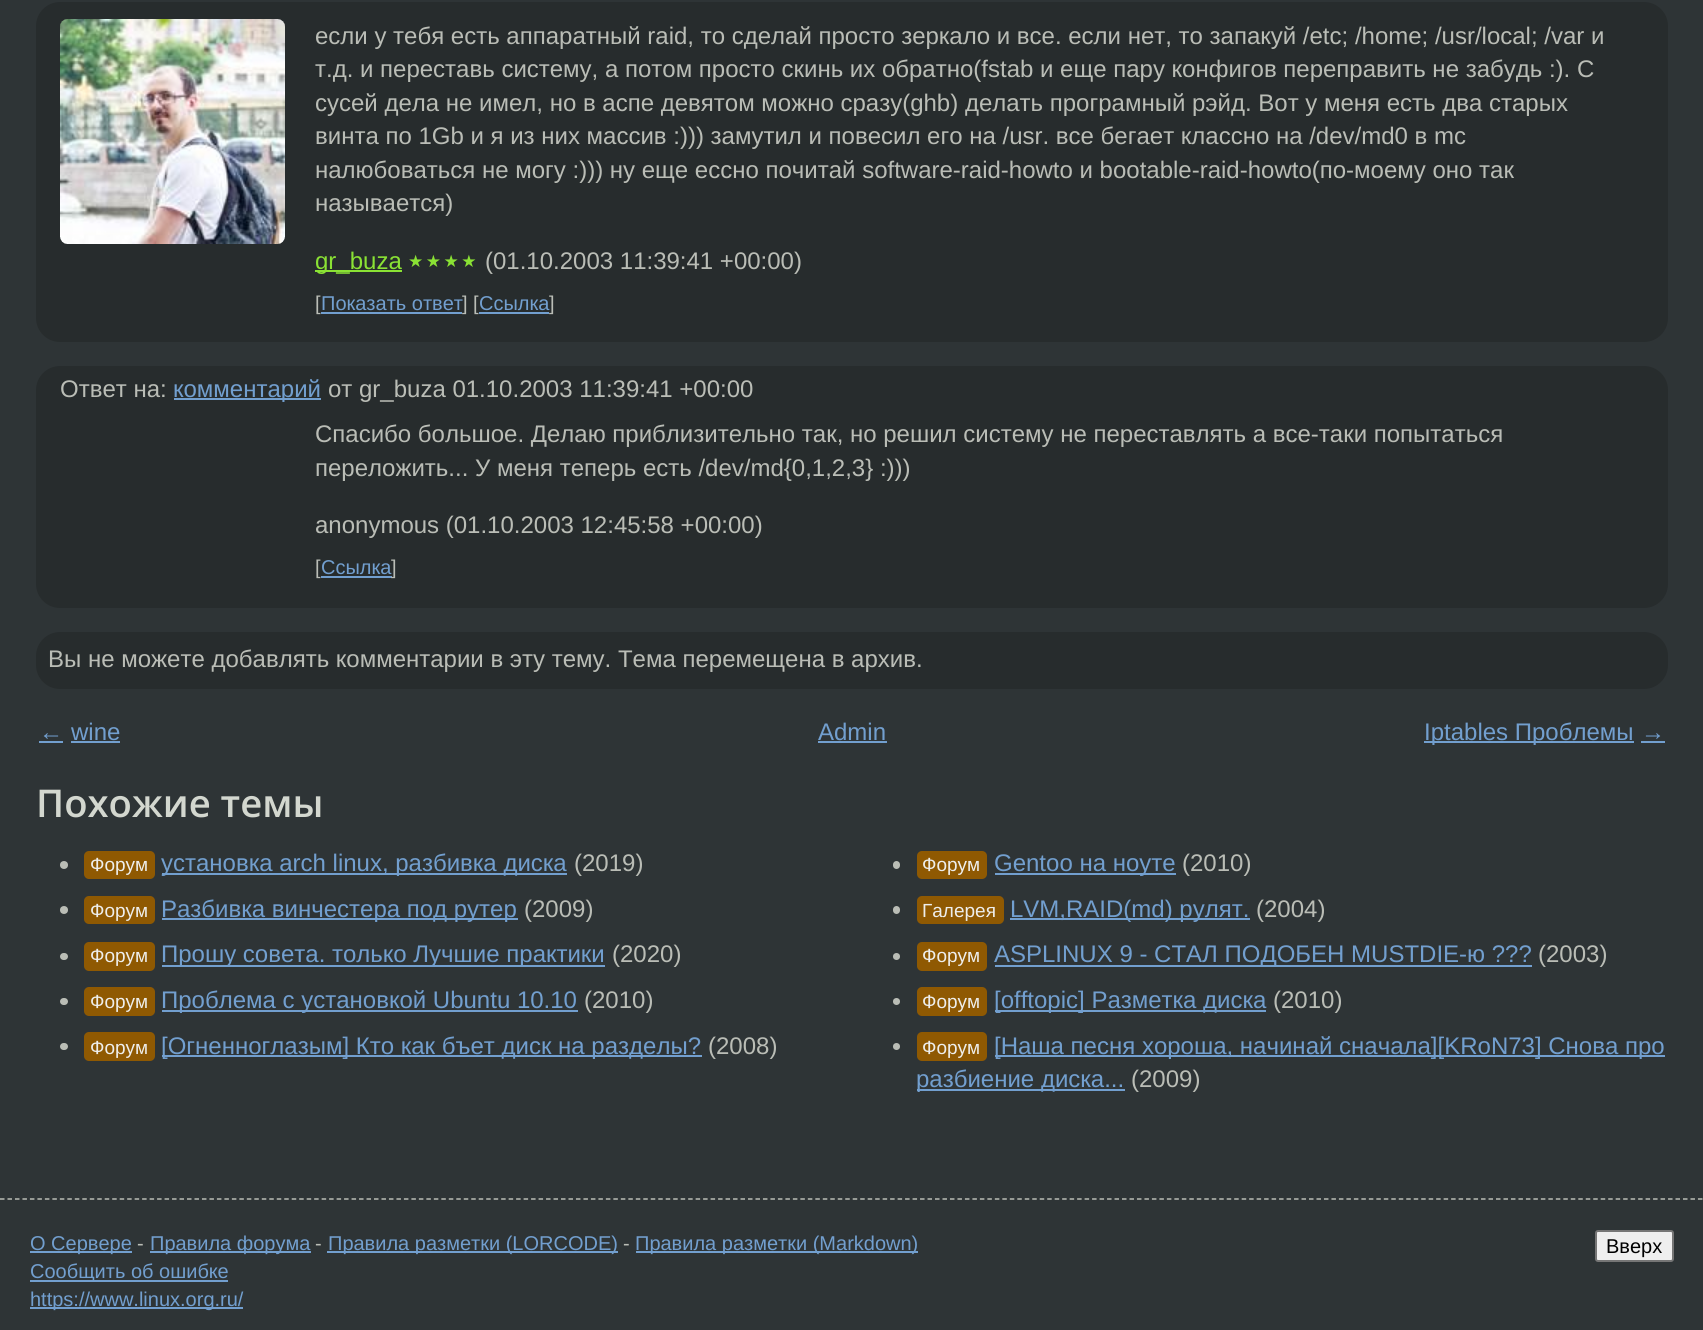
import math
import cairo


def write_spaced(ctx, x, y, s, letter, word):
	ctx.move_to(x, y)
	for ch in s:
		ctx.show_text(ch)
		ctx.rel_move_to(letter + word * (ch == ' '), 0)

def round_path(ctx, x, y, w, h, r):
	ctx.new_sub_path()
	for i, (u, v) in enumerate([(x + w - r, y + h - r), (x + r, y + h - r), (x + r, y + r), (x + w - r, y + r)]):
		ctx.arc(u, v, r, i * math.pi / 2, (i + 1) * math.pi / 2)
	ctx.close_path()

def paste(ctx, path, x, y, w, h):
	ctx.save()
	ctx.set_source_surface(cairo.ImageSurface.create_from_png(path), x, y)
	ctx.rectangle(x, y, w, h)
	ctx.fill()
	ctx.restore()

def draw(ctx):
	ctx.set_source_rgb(0.18, 0.204, 0.212)
	ctx.paint()
	ctx.set_source_rgb(0.153, 0.173, 0.176)
	round_path(ctx, 36, 2, 1632, 340, 24)
	ctx.fill()
	paste(ctx, 'media/1.png', 60, 19, 225, 225)
	ctx.select_font_face('Liberation Sans')
	ctx.set_font_size(24)
	ctx.set_source_rgb(0.729, 0.741, 0.714)
	for x, y, s in [
		(315, 44, 'если у тебя есть аппаратный raid, то сделай просто зеркало и все. если нет, то запакуй /etc; /home; /usr/local; /var и'),
		(315, 77, 'т.д. и переставь систему, а потом просто скинь их обратно(fstab и еще пару конфигов переправить не забудь :). С'),
		(315, 111, 'сусей дела не имел, но в аспе девятом можно сразу(ghb) делать програмный рэйд. Вот у меня есть два старых'),
		(315, 144, 'винта по 1Gb и я из них массив :))) замутил и повесил его на /usr. все бегает классно на /dev/md0 в mc'),
		(315, 178, 'налюбоваться не могу :))) ну еще ессно почитай software-raid-howto и bootable-raid-howto(по-моему оно так'),
		(315, 211, 'называется)'),
	]:
		ctx.move_to(x, y)
		ctx.show_text(s)
	ctx.set_source_rgb(0.541, 0.886, 0.204)
	ctx.rectangle(315, 270, 87, 2)
	ctx.fill()
	ctx.move_to(315, 269)
	ctx.show_text('gr_buza')
	ctx.select_font_face('DejaVu Sans')
	ctx.set_font_size(17)
	write_spaced(ctx, 408, 267, '★★★★', 2.5, 0)
	ctx.select_font_face('Liberation Sans')
	ctx.set_font_size(24)
	ctx.set_source_rgb(0.729, 0.741, 0.714)
	ctx.move_to(485, 269)
	ctx.show_text('(01.10.2003 11:39:41 +00:00)')
	ctx.set_font_size(20)
	ctx.move_to(315, 310)
	ctx.show_text('[')
	ctx.set_source_rgb(0.447, 0.624, 0.812)
	ctx.rectangle(321, 312, 141, 2)
	ctx.fill()
	ctx.move_to(321, 310)
	ctx.show_text('Показать ответ')
	ctx.set_source_rgb(0.729, 0.741, 0.714)
	ctx.move_to(462, 310)
	ctx.show_text('] [')
	ctx.set_source_rgb(0.447, 0.624, 0.812)
	ctx.rectangle(479, 312, 70, 2)
	ctx.fill()
	ctx.move_to(479, 310)
	ctx.show_text('Ссылка')
	ctx.set_source_rgb(0.729, 0.741, 0.714)
	ctx.move_to(549, 310)
	ctx.show_text(']')
	ctx.set_source_rgb(0.153, 0.173, 0.176)
	round_path(ctx, 36, 366, 1632, 242, 24)
	ctx.fill()
	ctx.set_font_size(24)
	ctx.set_source_rgb(0.729, 0.741, 0.714)
	ctx.move_to(60, 397)
	ctx.show_text('Ответ на:')
	ctx.set_source_rgb(0.447, 0.624, 0.812)
	ctx.rectangle(174, 398, 147, 2)
	ctx.fill()
	ctx.move_to(173, 397)
	ctx.show_text('комментарий')
	ctx.set_source_rgb(0.729, 0.741, 0.714)
	for x, y, s in [
		(328, 397, 'от gr_buza 01.10.2003 11:39:41 +00:00'),
		(315, 442, 'Спасибо большое. Делаю приблизительно так, но решил систему не переставлять а все-таки попытаться'),
		(315, 476, 'переложить... У меня теперь есть /dev/md{0,1,2,3} :)))'),
		(315, 533, 'anonymous (01.10.2003 12:45:58 +00:00)'),
	]:
		ctx.move_to(x, y)
		ctx.show_text(s)
	ctx.set_font_size(20)
	ctx.move_to(315, 574)
	ctx.show_text('[')
	ctx.set_source_rgb(0.447, 0.624, 0.812)
	ctx.rectangle(321, 576, 71, 2)
	ctx.fill()
	ctx.move_to(321, 574)
	ctx.show_text('Ссылка')
	ctx.set_source_rgb(0.729, 0.741, 0.714)
	ctx.move_to(391, 574)
	ctx.show_text(']')
	ctx.set_source_rgb(0.153, 0.173, 0.176)
	round_path(ctx, 36, 632, 1632, 57, 24)
	ctx.fill()
	ctx.set_font_size(24)
	ctx.set_source_rgb(0.729, 0.741, 0.714)
	ctx.move_to(48, 667)
	ctx.show_text('Вы не можете добавлять комментарии в эту тему. Тема перемещена в архив.')
	ctx.set_source_rgb(0.447, 0.624, 0.812)
	ctx.move_to(39, 740)
	ctx.show_text('←')
	ctx.rectangle(39, 741, 24, 2)
	ctx.fill()
	ctx.move_to(71, 740)
	ctx.show_text('wine')
	ctx.rectangle(71, 741, 49, 2)
	ctx.fill()
	ctx.move_to(818, 740)
	ctx.show_text('Admin')
	ctx.rectangle(818, 741, 69, 2)
	ctx.fill()
	ctx.rectangle(1424, 741, 210, 2)
	ctx.fill()
	ctx.move_to(1424, 740)
	ctx.show_text('Iptables Проблемы')
	ctx.move_to(1641, 740)
	ctx.show_text('→')
	ctx.rectangle(1641, 741, 24, 2)
	ctx.fill()
	ctx.select_font_face('Open Sans SemiBold')
	ctx.set_font_size(38.25)
	ctx.set_source_rgb(0.827, 0.843, 0.812)
	ctx.move_to(36, 817)
	ctx.show_text('Похожие темы')
	ctx.set_source_rgb(0.729, 0.741, 0.714)
	ctx.new_path()
	ctx.arc(64, 865, 4, 0, 2 * math.pi)
	ctx.fill()
	ctx.set_source_rgb(0.561, 0.349, 0.008)
	round_path(ctx, 84, 851, 71, 28, 5)
	ctx.fill()
	ctx.select_font_face('Liberation Sans')
	ctx.set_font_size(19)
	ctx.set_source_rgb(0.933, 0.933, 0.925)
	ctx.move_to(90, 871)
	ctx.show_text('Форум')
	ctx.set_source_rgb(0.447, 0.624, 0.812)
	ctx.rectangle(162, 873, 405, 2)
	ctx.fill()
	ctx.set_font_size(24)
	ctx.move_to(161, 871)
	ctx.show_text('установка arch linux, разбивка диска')
	ctx.set_source_rgb(0.729, 0.741, 0.714)
	ctx.move_to(574, 871)
	ctx.show_text('(2019)')
	ctx.new_path()
	ctx.arc(64, 910, 4, 0, 2 * math.pi)
	ctx.fill()
	ctx.set_source_rgb(0.561, 0.349, 0.008)
	round_path(ctx, 84, 896, 71, 28, 5)
	ctx.fill()
	ctx.set_font_size(19)
	ctx.set_source_rgb(0.933, 0.933, 0.925)
	ctx.move_to(90, 917)
	ctx.show_text('Форум')
	ctx.set_source_rgb(0.447, 0.624, 0.812)
	ctx.rectangle(162, 918, 356, 2)
	ctx.fill()
	ctx.set_font_size(24)
	ctx.move_to(161, 917)
	ctx.show_text('Разбивка винчестера под рутер')
	ctx.set_source_rgb(0.729, 0.741, 0.714)
	ctx.move_to(524, 917)
	ctx.show_text('(2009)')
	round_path(ctx, 60, 953, 8, 7, 3.5)
	ctx.fill()
	ctx.set_source_rgb(0.561, 0.349, 0.008)
	round_path(ctx, 84, 942, 71, 29, 5)
	ctx.fill()
	ctx.set_font_size(19)
	ctx.set_source_rgb(0.933, 0.933, 0.925)
	ctx.move_to(90, 962)
	ctx.show_text('Форум')
	ctx.set_source_rgb(0.447, 0.624, 0.812)
	ctx.rectangle(162, 965, 443, 2)
	ctx.fill()
	ctx.set_font_size(24)
	ctx.move_to(161, 962)
	ctx.show_text('Прошу совета. только Лучшие практики')
	ctx.set_source_rgb(0.729, 0.741, 0.714)
	ctx.move_to(612, 962)
	ctx.show_text('(2020)')
	round_path(ctx, 60, 998, 8, 7, 3.5)
	ctx.fill()
	ctx.set_source_rgb(0.561, 0.349, 0.008)
	round_path(ctx, 84, 987, 71, 29, 5)
	ctx.fill()
	ctx.set_font_size(19)
	ctx.set_source_rgb(0.933, 0.933, 0.925)
	ctx.move_to(90, 1008)
	ctx.show_text('Форум')
	ctx.set_source_rgb(0.447, 0.624, 0.812)
	ctx.rectangle(162, 1010, 416, 2)
	ctx.fill()
	ctx.set_font_size(24)
	ctx.move_to(161, 1008)
	ctx.show_text('Проблема с установкой Ubuntu 10.10')
	ctx.set_source_rgb(0.729, 0.741, 0.714)
	ctx.move_to(584, 1008)
	ctx.show_text('(2010)')
	round_path(ctx, 60, 1043, 8, 7, 3.5)
	ctx.fill()
	ctx.set_source_rgb(0.561, 0.349, 0.008)
	round_path(ctx, 84, 1032, 71, 29, 5)
	ctx.fill()
	ctx.set_font_size(19)
	ctx.set_source_rgb(0.933, 0.933, 0.925)
	ctx.move_to(90, 1054)
	ctx.show_text('Форум')
	ctx.set_source_rgb(0.447, 0.624, 0.812)
	ctx.rectangle(162, 1055, 540, 2)
	ctx.fill()
	ctx.set_font_size(24)
	ctx.move_to(161, 1054)
	ctx.show_text('[Огненноглазым] Кто как бъет диск на разделы?')
	ctx.set_source_rgb(0.729, 0.741, 0.714)
	ctx.move_to(708, 1054)
	ctx.show_text('(2008)')
	round_path(ctx, 893, 861, 7, 8, 3.5)
	ctx.fill()
	ctx.set_source_rgb(0.561, 0.349, 0.008)
	round_path(ctx, 917, 851, 70, 28, 5)
	ctx.fill()
	ctx.set_font_size(19)
	ctx.set_source_rgb(0.933, 0.933, 0.925)
	ctx.move_to(922, 871)
	ctx.show_text('Форум')
	ctx.set_source_rgb(0.447, 0.624, 0.812)
	ctx.rectangle(995, 873, 181, 2)
	ctx.fill()
	ctx.set_font_size(24)
	ctx.move_to(994, 871)
	ctx.show_text('Gentoo на ноуте')
	ctx.set_source_rgb(0.729, 0.741, 0.714)
	ctx.move_to(1182, 871)
	ctx.show_text('(2010)')
	round_path(ctx, 893, 906, 7, 8, 3.5)
	ctx.fill()
	ctx.set_source_rgb(0.561, 0.349, 0.008)
	round_path(ctx, 917, 896, 87, 28, 5)
	ctx.fill()
	ctx.set_font_size(19)
	ctx.set_source_rgb(0.933, 0.933, 0.925)
	ctx.move_to(922, 917)
	ctx.show_text('Галерея')
	ctx.set_source_rgb(0.447, 0.624, 0.812)
	ctx.rectangle(1010, 918, 240, 2)
	ctx.fill()
	ctx.set_font_size(24)
	ctx.move_to(1010, 917)
	ctx.show_text('LVM,RAID(md) рулят.')
	ctx.set_source_rgb(0.729, 0.741, 0.714)
	ctx.move_to(1256, 917)
	ctx.show_text('(2004)')
	ctx.new_path()
	ctx.arc(896.5, 956.5, 3.5, 0, 2 * math.pi)
	ctx.fill()
	ctx.set_source_rgb(0.561, 0.349, 0.008)
	round_path(ctx, 917, 942, 70, 29, 5)
	ctx.fill()
	ctx.set_font_size(19)
	ctx.set_source_rgb(0.933, 0.933, 0.925)
	ctx.move_to(922, 962)
	ctx.show_text('Форум')
	ctx.set_source_rgb(0.447, 0.624, 0.812)
	ctx.rectangle(995, 965, 537, 2)
	ctx.fill()
	ctx.set_font_size(24)
	ctx.move_to(994, 962)
	ctx.show_text('ASPLINUX 9 - СТАЛ ПОДОБЕН MUSTDIE-ю ???')
	ctx.set_source_rgb(0.729, 0.741, 0.714)
	ctx.move_to(1538, 962)
	ctx.show_text('(2003)')
	ctx.new_path()
	ctx.arc(896.5, 1001.5, 3.5, 0, 2 * math.pi)
	ctx.fill()
	ctx.set_source_rgb(0.561, 0.349, 0.008)
	round_path(ctx, 917, 987, 70, 29, 5)
	ctx.fill()
	ctx.set_font_size(19)
	ctx.set_source_rgb(0.933, 0.933, 0.925)
	ctx.move_to(922, 1008)
	ctx.show_text('Форум')
	ctx.set_source_rgb(0.447, 0.624, 0.812)
	ctx.rectangle(995, 1010, 271, 2)
	ctx.fill()
	ctx.set_font_size(24)
	ctx.move_to(994, 1008)
	ctx.show_text('[offtopic] Разметка диска')
	ctx.set_source_rgb(0.729, 0.741, 0.714)
	ctx.move_to(1273, 1008)
	ctx.show_text('(2010)')
	ctx.new_path()
	ctx.arc(896.5, 1046.5, 3.5, 0, 2 * math.pi)
	ctx.fill()
	ctx.set_source_rgb(0.561, 0.349, 0.008)
	round_path(ctx, 917, 1032, 70, 29, 5)
	ctx.fill()
	ctx.set_font_size(19)
	ctx.set_source_rgb(0.933, 0.933, 0.925)
	ctx.move_to(922, 1054)
	ctx.show_text('Форум')
	ctx.set_source_rgb(0.447, 0.624, 0.812)
	ctx.rectangle(995, 1055, 670, 2)
	ctx.fill()
	ctx.set_font_size(24)
	ctx.move_to(994, 1054)
	ctx.show_text('[Наша песня хороша, начинай сначала][KRoN73] Снова про')
	ctx.rectangle(917, 1089, 208, 2)
	ctx.fill()
	ctx.move_to(916, 1087)
	ctx.show_text('разбиение диска...')
	ctx.set_source_rgb(0.729, 0.741, 0.714)
	ctx.move_to(1131, 1087)
	ctx.show_text('(2009)')
	ctx.new_path()
	ctx.move_to(0, 1199)
	ctx.line_to(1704, 1199)
	ctx.set_line_width(1.5)
	ctx.set_dash([4.5, 2.98])
	ctx.stroke()
	ctx.set_source_rgb(0.447, 0.624, 0.812)
	ctx.rectangle(30, 1251, 102, 2)
	ctx.fill()
	ctx.set_font_size(20)
	ctx.move_to(30, 1250)
	ctx.show_text('О Сервере')
	ctx.set_source_rgb(0.729, 0.741, 0.714)
	ctx.move_to(137, 1250)
	ctx.show_text('-')
	ctx.set_source_rgb(0.447, 0.624, 0.812)
	ctx.rectangle(150, 1251, 161, 2)
	ctx.fill()
	ctx.move_to(150, 1250)
	ctx.show_text('Правила форума')
	ctx.set_source_rgb(0.729, 0.741, 0.714)
	ctx.move_to(315, 1250)
	ctx.show_text('-')
	ctx.set_source_rgb(0.447, 0.624, 0.812)
	ctx.rectangle(327, 1251, 291, 2)
	ctx.fill()
	ctx.move_to(328, 1250)
	ctx.show_text('Правила разметки (LORCODE)')
	ctx.set_source_rgb(0.729, 0.741, 0.714)
	ctx.move_to(623, 1250)
	ctx.show_text('-')
	ctx.set_source_rgb(0.447, 0.624, 0.812)
	ctx.rectangle(636, 1251, 282, 2)
	ctx.fill()
	ctx.move_to(635, 1250)
	ctx.show_text('Правила разметки (Markdown)')
	ctx.rectangle(30, 1280, 198, 2)
	ctx.fill()
	ctx.move_to(30, 1278)
	ctx.show_text('Сообщить об ошибке')
	ctx.rectangle(30, 1307, 213, 2)
	ctx.fill()
	ctx.move_to(30, 1306)
	ctx.show_text('https://www.linux.org.ru/')
	ctx.set_source_rgb(0.937, 0.937, 0.937)
	round_path(ctx, 1596, 1231, 77, 30, 2)
	ctx.fill_preserve()
	ctx.set_source_rgb(0.463, 0.463, 0.463)
	ctx.set_line_width(2)
	ctx.set_dash([])
	ctx.stroke()
	ctx.set_source_rgb(0, 0, 0)
	ctx.move_to(1606, 1253)
	ctx.show_text('Вверх')


surface = cairo.ImageSurface(cairo.FORMAT_RGB24, 1703, 1330)
ctx = cairo.Context(surface)
options = cairo.FontOptions()
options.set_hint_metrics(cairo.HINT_METRICS_OFF)
options.set_hint_style(cairo.HINT_STYLE_NONE)
ctx.set_font_options(options)
ctx.set_miter_limit(4)
draw(ctx)
surface.write_to_png('image.png')
